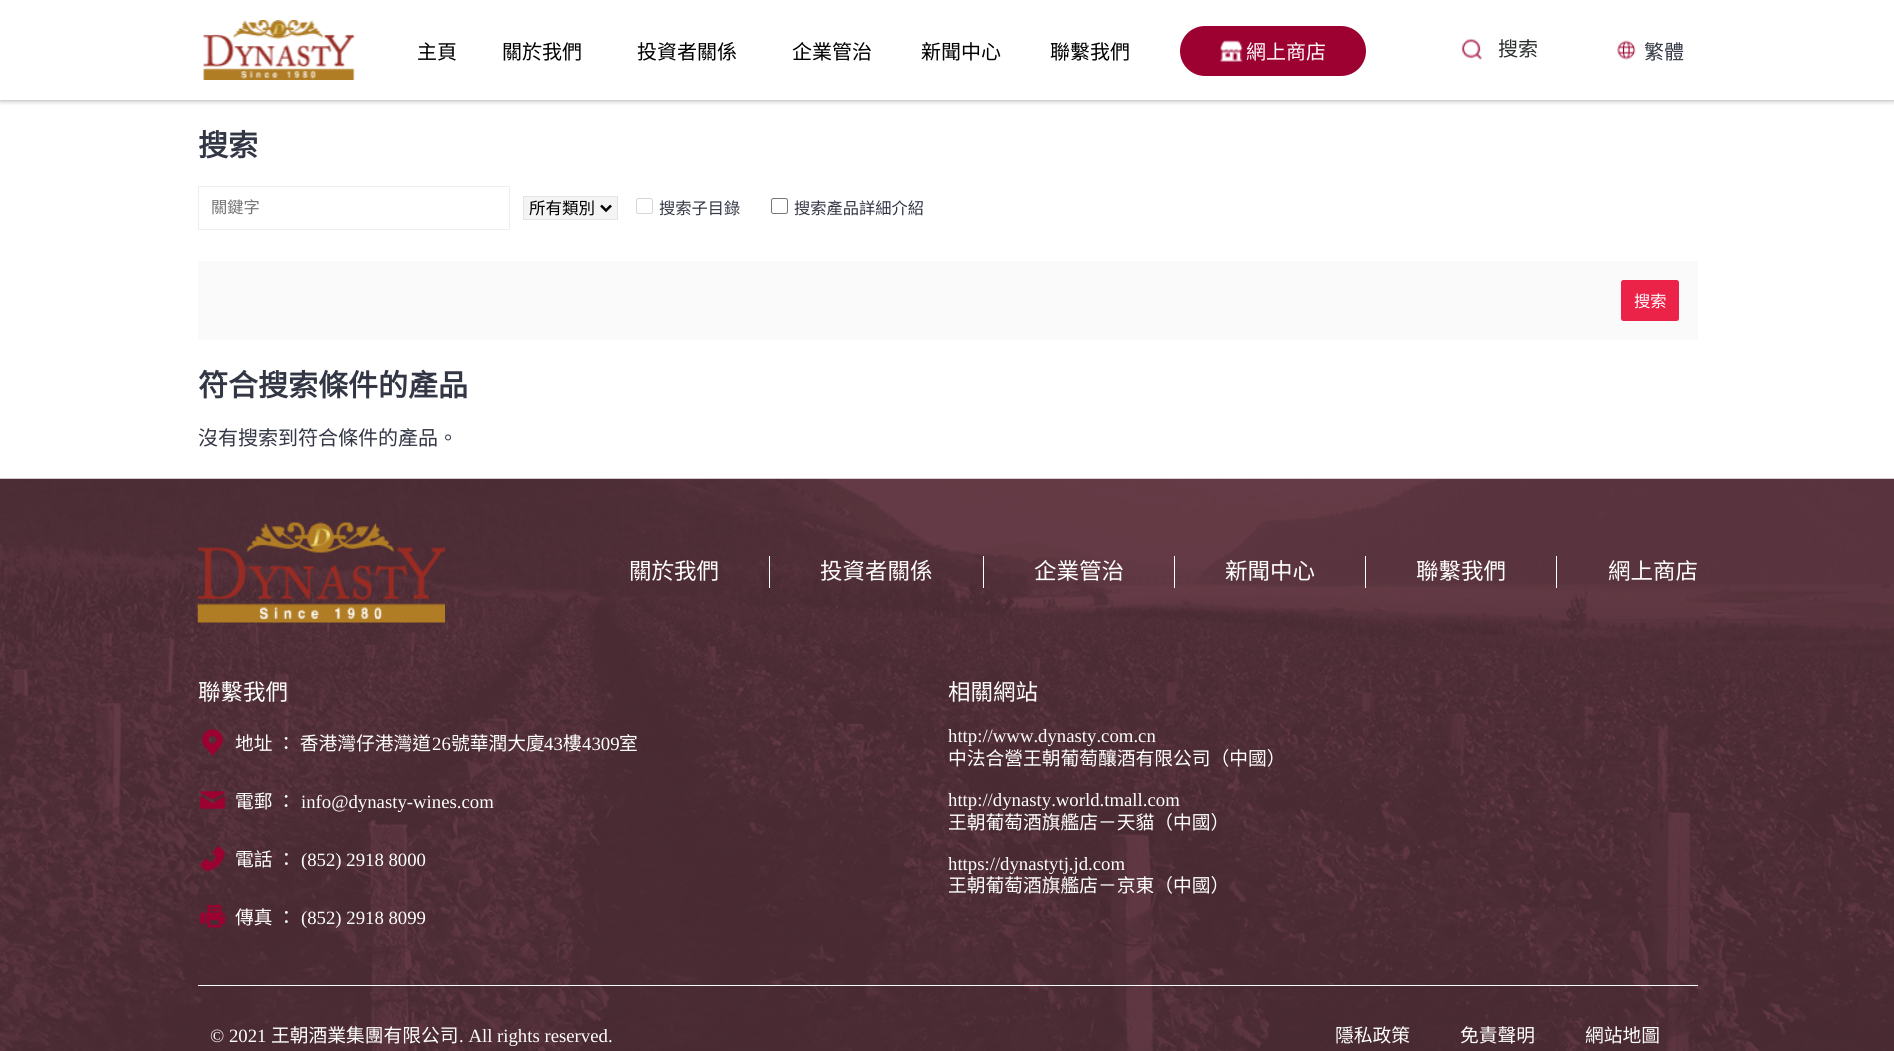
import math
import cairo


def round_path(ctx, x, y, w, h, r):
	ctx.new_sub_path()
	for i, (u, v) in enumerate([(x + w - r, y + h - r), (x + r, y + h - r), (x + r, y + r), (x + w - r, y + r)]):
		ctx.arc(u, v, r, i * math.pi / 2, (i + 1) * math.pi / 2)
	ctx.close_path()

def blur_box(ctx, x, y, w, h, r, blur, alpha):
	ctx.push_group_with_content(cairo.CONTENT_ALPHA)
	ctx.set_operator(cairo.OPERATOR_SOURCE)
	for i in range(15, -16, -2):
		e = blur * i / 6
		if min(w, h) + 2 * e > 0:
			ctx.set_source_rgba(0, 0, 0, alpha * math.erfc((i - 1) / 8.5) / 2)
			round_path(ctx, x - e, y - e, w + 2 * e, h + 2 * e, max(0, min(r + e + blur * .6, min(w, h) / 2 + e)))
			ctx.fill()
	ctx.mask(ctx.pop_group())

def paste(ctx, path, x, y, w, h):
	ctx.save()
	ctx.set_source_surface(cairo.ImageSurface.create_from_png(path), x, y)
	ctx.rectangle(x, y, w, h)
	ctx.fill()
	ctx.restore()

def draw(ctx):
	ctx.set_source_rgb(1, 1, 1)
	ctx.paint()
	ctx.save()
	ctx.rectangle(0, 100, 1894, 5)
	ctx.clip()
	ctx.set_source_rgb(0, 0, 0)
	blur_box(ctx, 0, 0, 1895, 100, 0, 3, 0.4)
	ctx.restore()
	ctx.select_font_face('Noto Sans CJK HK')
	ctx.set_font_size(20)
	ctx.set_source_rgb(0, 0, 0)
	for x, y, s in [
		(417, 59, '主頁'),
		(502, 59, '關於我們'),
		(637, 59, '投資者關係'),
		(792, 59, '企業管治'),
		(921, 59, '新聞中心'),
		(1050, 59, '聯繫我們'),
	]:
		ctx.move_to(x, y)
		ctx.show_text(s)
	ctx.set_source_rgb(0.616, 0.004, 0.196)
	round_path(ctx, 1180, 26, 186, 50, 25)
	ctx.fill()
	paste(ctx, 'media/1.png', 1220, 40, 23, 22)
	ctx.set_source_rgb(1, 1, 1)
	ctx.move_to(1246, 59)
	ctx.show_text('網上商店')
	paste(ctx, 'media/2.png', 203, 20, 152, 60)
	paste(ctx, 'media/3.png', 1461, 38, 21, 22)
	ctx.set_source_rgb(0.165, 0.18, 0.18)
	ctx.move_to(1498, 56)
	ctx.show_text('搜索')
	paste(ctx, 'media/4.png', 1617, 40, 19, 20)
	ctx.set_source_rgb(0.2, 0.216, 0.271)
	ctx.move_to(1644, 59)
	ctx.show_text('繁體')
	ctx.select_font_face('Noto Sans CJK HK', cairo.FONT_SLANT_NORMAL, cairo.FONT_WEIGHT_BOLD)
	ctx.set_font_size(30)
	ctx.move_to(198, 156)
	ctx.show_text('搜索')
	ctx.rectangle(198.5, 186.5, 311, 43)
	ctx.set_source_rgb(0.933, 0.933, 0.933)
	ctx.set_line_width(1)
	ctx.stroke()
	ctx.select_font_face('Noto Sans CJK HK')
	ctx.set_font_size(16.25)
	ctx.set_source_rgb(0.459, 0.459, 0.459)
	ctx.move_to(211, 213)
	ctx.show_text('關鍵字')
	ctx.set_source_rgb(0.957, 0.957, 0.957)
	ctx.rectangle(523.5, 196.5, 94, 23)
	ctx.fill_preserve()
	ctx.set_source_rgb(0.894, 0.894, 0.894)
	ctx.stroke()
	ctx.new_path()
	ctx.move_to(601, 205.5)
	ctx.line_to(606, 210.5)
	ctx.line_to(611, 205.5)
	ctx.set_source_rgb(0, 0, 0)
	ctx.set_line_width(2.5)
	ctx.stroke()
	ctx.set_font_size(16.5)
	ctx.move_to(529, 214)
	ctx.show_text('所有類別')
	round_path(ctx, 636.5, 198.5, 16, 15, 2)
	ctx.set_source_rgb(0.839, 0.839, 0.839)
	ctx.set_line_width(1)
	ctx.stroke()
	ctx.set_font_size(16.25)
	ctx.set_source_rgb(0.2, 0.216, 0.271)
	ctx.move_to(659, 214)
	ctx.show_text('搜索子目錄')
	round_path(ctx, 771.5, 198.5, 16, 15, 2)
	ctx.set_source_rgb(0.463, 0.463, 0.463)
	ctx.stroke()
	ctx.set_source_rgb(0.2, 0.216, 0.271)
	ctx.move_to(794, 214)
	ctx.show_text('搜索產品詳細介紹')
	ctx.set_source_rgb(0.98, 0.98, 0.98)
	ctx.rectangle(198, 261, 1500, 79)
	ctx.fill()
	ctx.set_source_rgb(0.918, 0.137, 0.286)
	round_path(ctx, 1621, 280, 58, 41, 2.5)
	ctx.fill()
	ctx.set_source_rgb(1, 1, 1)
	ctx.move_to(1634, 307)
	ctx.show_text('搜索')
	ctx.select_font_face('Noto Sans CJK HK', cairo.FONT_SLANT_NORMAL, cairo.FONT_WEIGHT_BOLD)
	ctx.set_font_size(30)
	ctx.set_source_rgb(0.2, 0.216, 0.271)
	ctx.move_to(198, 396)
	ctx.show_text('符合搜索條件的產品')
	ctx.select_font_face('Noto Sans CJK HK')
	ctx.set_font_size(20)
	ctx.move_to(198, 445)
	ctx.show_text('沒有搜索到符合條件的產品。')
	paste(ctx, 'media/5.png', 0, 478, 1894, 573)
	ctx.set_source_rgb(1, 1, 1)
	ctx.rectangle(198, 985, 1500, 1)
	ctx.fill()
	paste(ctx, 'media/6.png', 197, 522, 248, 101)
	ctx.set_font_size(22.5)
	ctx.move_to(629, 579)
	ctx.show_text('關於我們')
	ctx.rectangle(769, 556, 1, 32)
	ctx.fill()
	ctx.move_to(820, 579)
	ctx.show_text('投資者關係')
	ctx.rectangle(983, 556, 1, 32)
	ctx.fill()
	ctx.move_to(1034, 579)
	ctx.show_text('企業管治')
	ctx.rectangle(1174, 556, 1, 32)
	ctx.fill()
	ctx.move_to(1225, 579)
	ctx.show_text('新聞中心')
	ctx.rectangle(1365, 556, 1, 32)
	ctx.fill()
	ctx.move_to(1416, 579)
	ctx.show_text('聯繫我們')
	ctx.rectangle(1556, 556, 1, 32)
	ctx.fill()
	ctx.move_to(1608, 579)
	ctx.show_text('網上商店')
	ctx.move_to(198, 700)
	ctx.show_text('聯繫我們')
	paste(ctx, 'media/7.png', 201, 728, 23, 28)
	ctx.set_font_size(18.75)
	ctx.move_to(235, 750)
	ctx.show_text('地址 ： 香港灣仔港灣道')
	ctx.select_font_face('Liberation Serif')
	ctx.move_to(432, 750)
	ctx.show_text('26')
	ctx.select_font_face('Noto Sans CJK HK')
	ctx.move_to(451, 750)
	ctx.show_text('號華潤大廈')
	ctx.select_font_face('Liberation Serif')
	ctx.move_to(544, 750)
	ctx.show_text('43')
	ctx.select_font_face('Noto Sans CJK HK')
	ctx.move_to(563, 750)
	ctx.show_text('樓')
	ctx.select_font_face('Liberation Serif')
	ctx.move_to(582, 750)
	ctx.show_text('4309')
	ctx.select_font_face('Noto Sans CJK HK')
	ctx.move_to(619, 750)
	ctx.show_text('室')
	paste(ctx, 'media/8.png', 199, 791, 27, 18)
	ctx.move_to(235, 808)
	ctx.show_text('電郵 ：')
	ctx.select_font_face('Liberation Serif')
	ctx.move_to(301, 808)
	ctx.show_text('info@dynasty-wines.com')
	paste(ctx, 'media/9.png', 200, 846, 26, 26)
	ctx.select_font_face('Noto Sans CJK HK')
	ctx.move_to(235, 866)
	ctx.show_text('電話')
	ctx.move_to(277, 866)
	ctx.show_text('：')
	ctx.select_font_face('Liberation Serif')
	ctx.move_to(301, 866)
	ctx.show_text('(852) 2918 8000')
	paste(ctx, 'media/10.png', 199, 904, 27, 24)
	ctx.select_font_face('Noto Sans CJK HK')
	ctx.move_to(235, 924)
	ctx.show_text('傳真')
	ctx.move_to(277, 924)
	ctx.show_text('：')
	ctx.select_font_face('Liberation Serif')
	ctx.move_to(301, 924)
	ctx.show_text('(852) 2918 8099')
	ctx.select_font_face('Noto Sans CJK HK')
	ctx.set_font_size(22.5)
	ctx.move_to(948, 700)
	ctx.show_text('相關網站')
	ctx.select_font_face('Liberation Serif')
	ctx.set_font_size(18.75)
	ctx.move_to(948, 742)
	ctx.show_text('http://www.dynasty.com.cn')
	ctx.select_font_face('Noto Sans CJK HK')
	ctx.move_to(948, 765)
	ctx.show_text('中法合營王朝葡萄釀酒有限公司（中國）')
	ctx.select_font_face('Liberation Serif')
	ctx.move_to(948, 806)
	ctx.show_text('http://dynasty.world.tmall.com')
	ctx.select_font_face('Noto Sans CJK HK')
	ctx.move_to(948, 829)
	ctx.show_text('王朝葡萄酒旗艦店－天貓（中國）')
	ctx.select_font_face('Liberation Serif')
	ctx.move_to(948, 870)
	ctx.show_text('https://dynastytj.jd.com')
	ctx.select_font_face('Noto Sans CJK HK')
	ctx.move_to(948, 892)
	ctx.show_text('王朝葡萄酒旗艦店－京東（中國）')
	ctx.select_font_face('Liberation Serif')
	ctx.move_to(210, 1042)
	ctx.show_text('© 2021')
	ctx.select_font_face('Noto Sans CJK HK')
	ctx.move_to(271, 1042)
	ctx.show_text('王朝酒業集團有限公司')
	ctx.select_font_face('Liberation Serif')
	ctx.move_to(459, 1042)
	ctx.show_text('. All rights reserved.')
	ctx.select_font_face('Noto Sans CJK HK')
	for x, y, s in [
		(1335, 1042, '隱私政策'),
		(1460, 1042, '免責聲明'),
		(1585, 1042, '網站地圖'),
	]:
		ctx.move_to(x, y)
		ctx.show_text(s)


surface = cairo.ImageSurface(cairo.FORMAT_RGB24, 1894, 1051)
ctx = cairo.Context(surface)
options = cairo.FontOptions()
options.set_hint_metrics(cairo.HINT_METRICS_OFF)
options.set_hint_style(cairo.HINT_STYLE_NONE)
ctx.set_font_options(options)
ctx.set_miter_limit(4)
draw(ctx)
surface.write_to_png('image.png')
